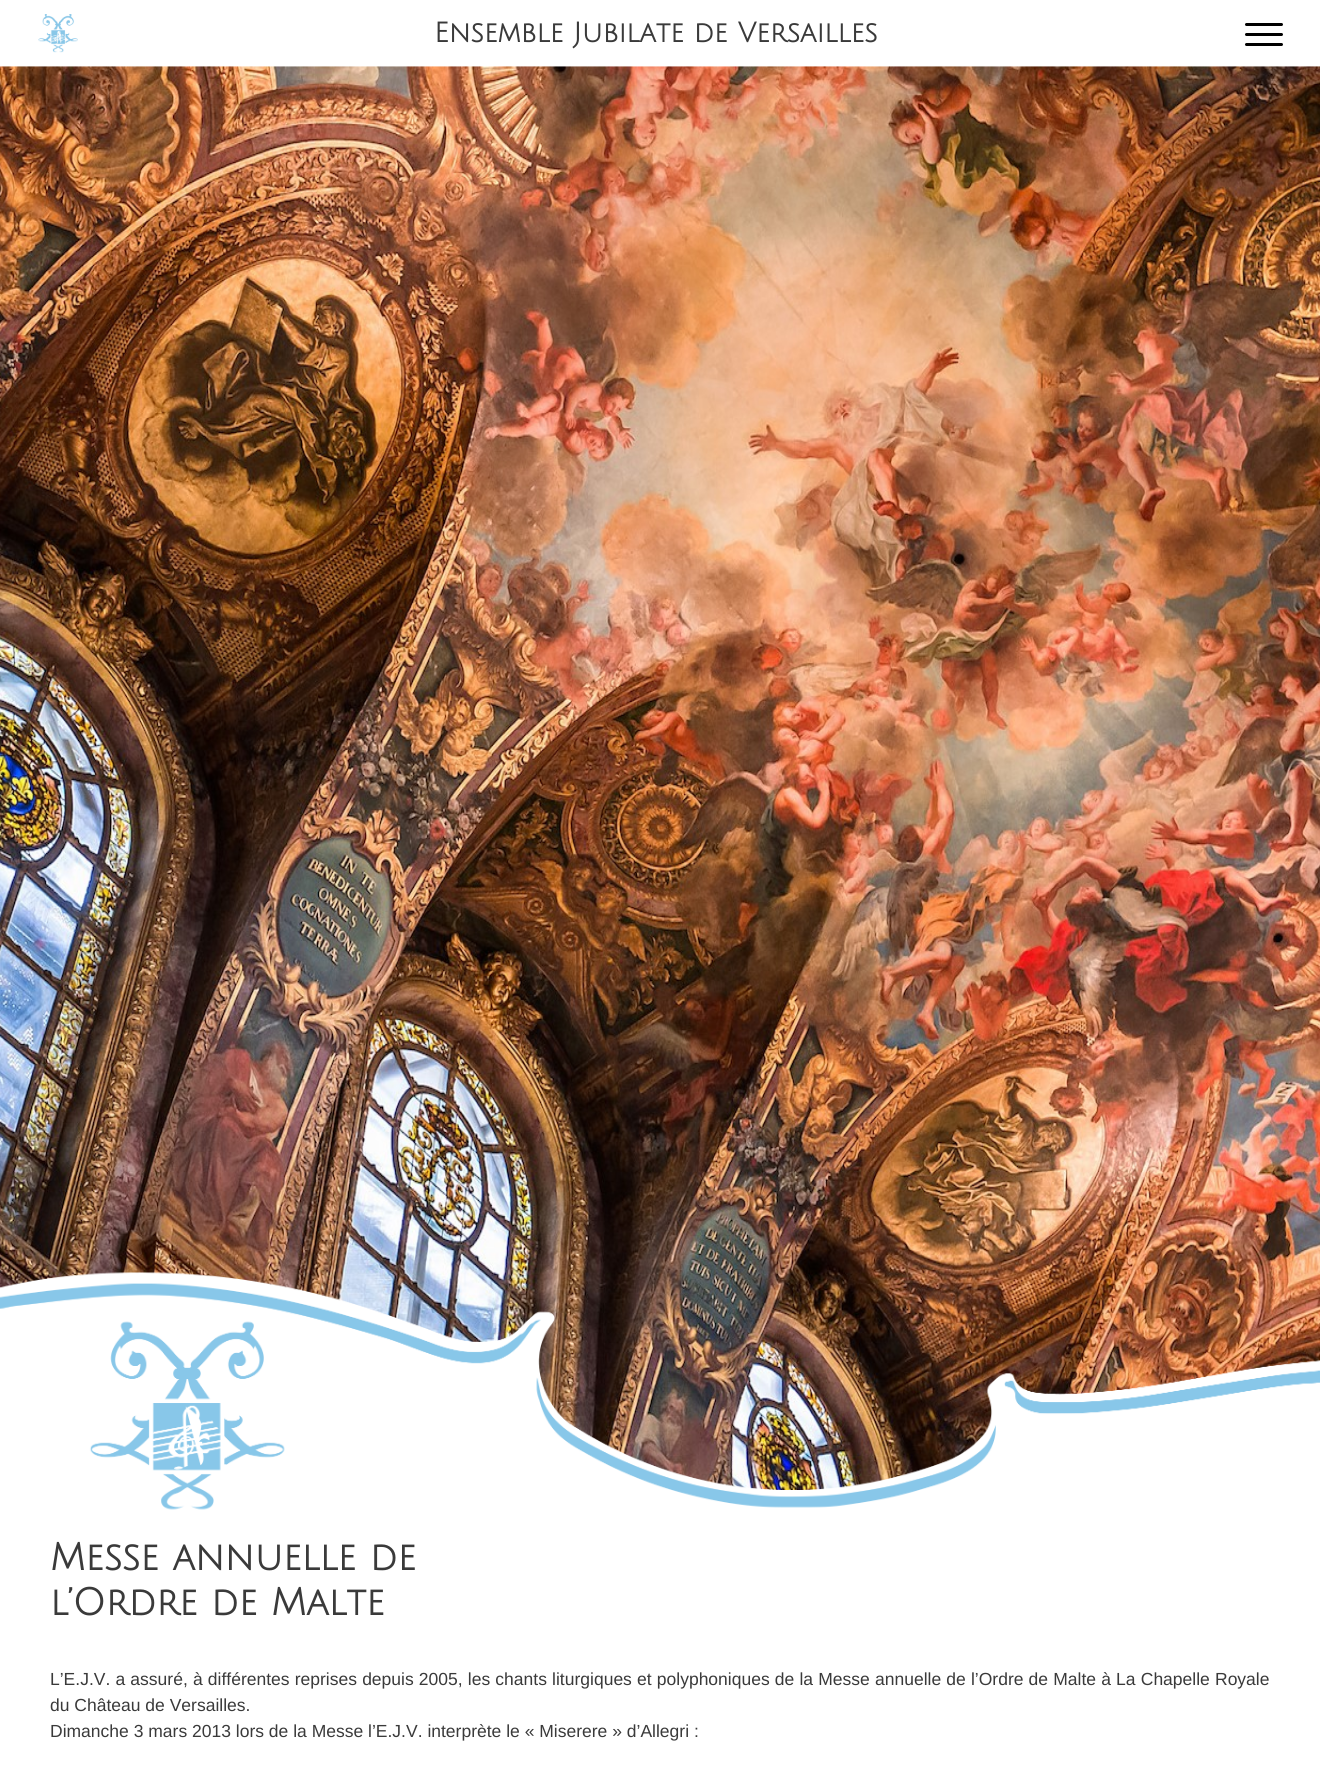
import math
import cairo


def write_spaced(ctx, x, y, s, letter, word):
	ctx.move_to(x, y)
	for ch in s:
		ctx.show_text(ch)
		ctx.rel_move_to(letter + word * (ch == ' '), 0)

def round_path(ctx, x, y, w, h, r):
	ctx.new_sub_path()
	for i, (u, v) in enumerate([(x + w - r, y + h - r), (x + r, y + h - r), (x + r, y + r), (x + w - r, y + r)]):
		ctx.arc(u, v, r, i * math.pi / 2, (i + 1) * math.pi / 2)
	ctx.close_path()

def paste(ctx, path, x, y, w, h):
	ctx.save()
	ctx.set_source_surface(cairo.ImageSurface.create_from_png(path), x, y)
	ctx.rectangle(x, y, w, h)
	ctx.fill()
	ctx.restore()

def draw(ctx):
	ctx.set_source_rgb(1, 1, 1)
	ctx.paint()
	paste(ctx, 'media/1.png', 38, 14, 40, 39)
	ctx.select_font_face('Julius Sans One', cairo.FONT_SLANT_NORMAL, cairo.FONT_WEIGHT_BOLD)
	ctx.set_font_size(27.5)
	ctx.set_source_rgb(0.227, 0.227, 0.227)
	ctx.move_to(434, 42)
	ctx.show_text('Ensemble Jubilate de Versailles')
	paste(ctx, 'media/2.png', 0, 66, 1320, 1424)
	paste(ctx, 'media/3.png', 0, 1272, 1320, 238)
	ctx.set_font_size(37.5)
	ctx.move_to(50, 1570)
	ctx.show_text('Messe annuelle de')
	ctx.move_to(50, 1615)
	ctx.show_text('l’Ordre de Malte')
	ctx.select_font_face('Liberation Sans')
	ctx.set_font_size(17.5)
	write_spaced(ctx, 50, 1685, 'L’E.J.V. a assuré, à différentes reprises depuis 2005, les chants liturgiques et polyphoniques de la Messe annuelle de l’Ordre de Malte à La Chapelle Royale', 0, 0.3)
	ctx.move_to(50, 1711)
	ctx.show_text('du Château de Versailles.')
	ctx.move_to(50, 1737)
	ctx.show_text('Dimanche 3 mars 2013 lors de la Messe l’E.J.V. interprète le « Miserere » d’Allegri :')
	ctx.set_source_rgb(0, 0, 0)
	round_path(ctx, 1245, 33, 38, 3, 1.5)
	ctx.fill()
	round_path(ctx, 1245, 23, 38, 3, 1.5)
	ctx.fill()
	round_path(ctx, 1245, 43, 38, 3, 1.5)
	ctx.fill()


surface = cairo.ImageSurface(cairo.FORMAT_RGB24, 1320, 1779)
ctx = cairo.Context(surface)
options = cairo.FontOptions()
options.set_hint_metrics(cairo.HINT_METRICS_OFF)
options.set_hint_style(cairo.HINT_STYLE_NONE)
ctx.set_font_options(options)
ctx.set_miter_limit(4)
draw(ctx)
surface.write_to_png('image.png')
